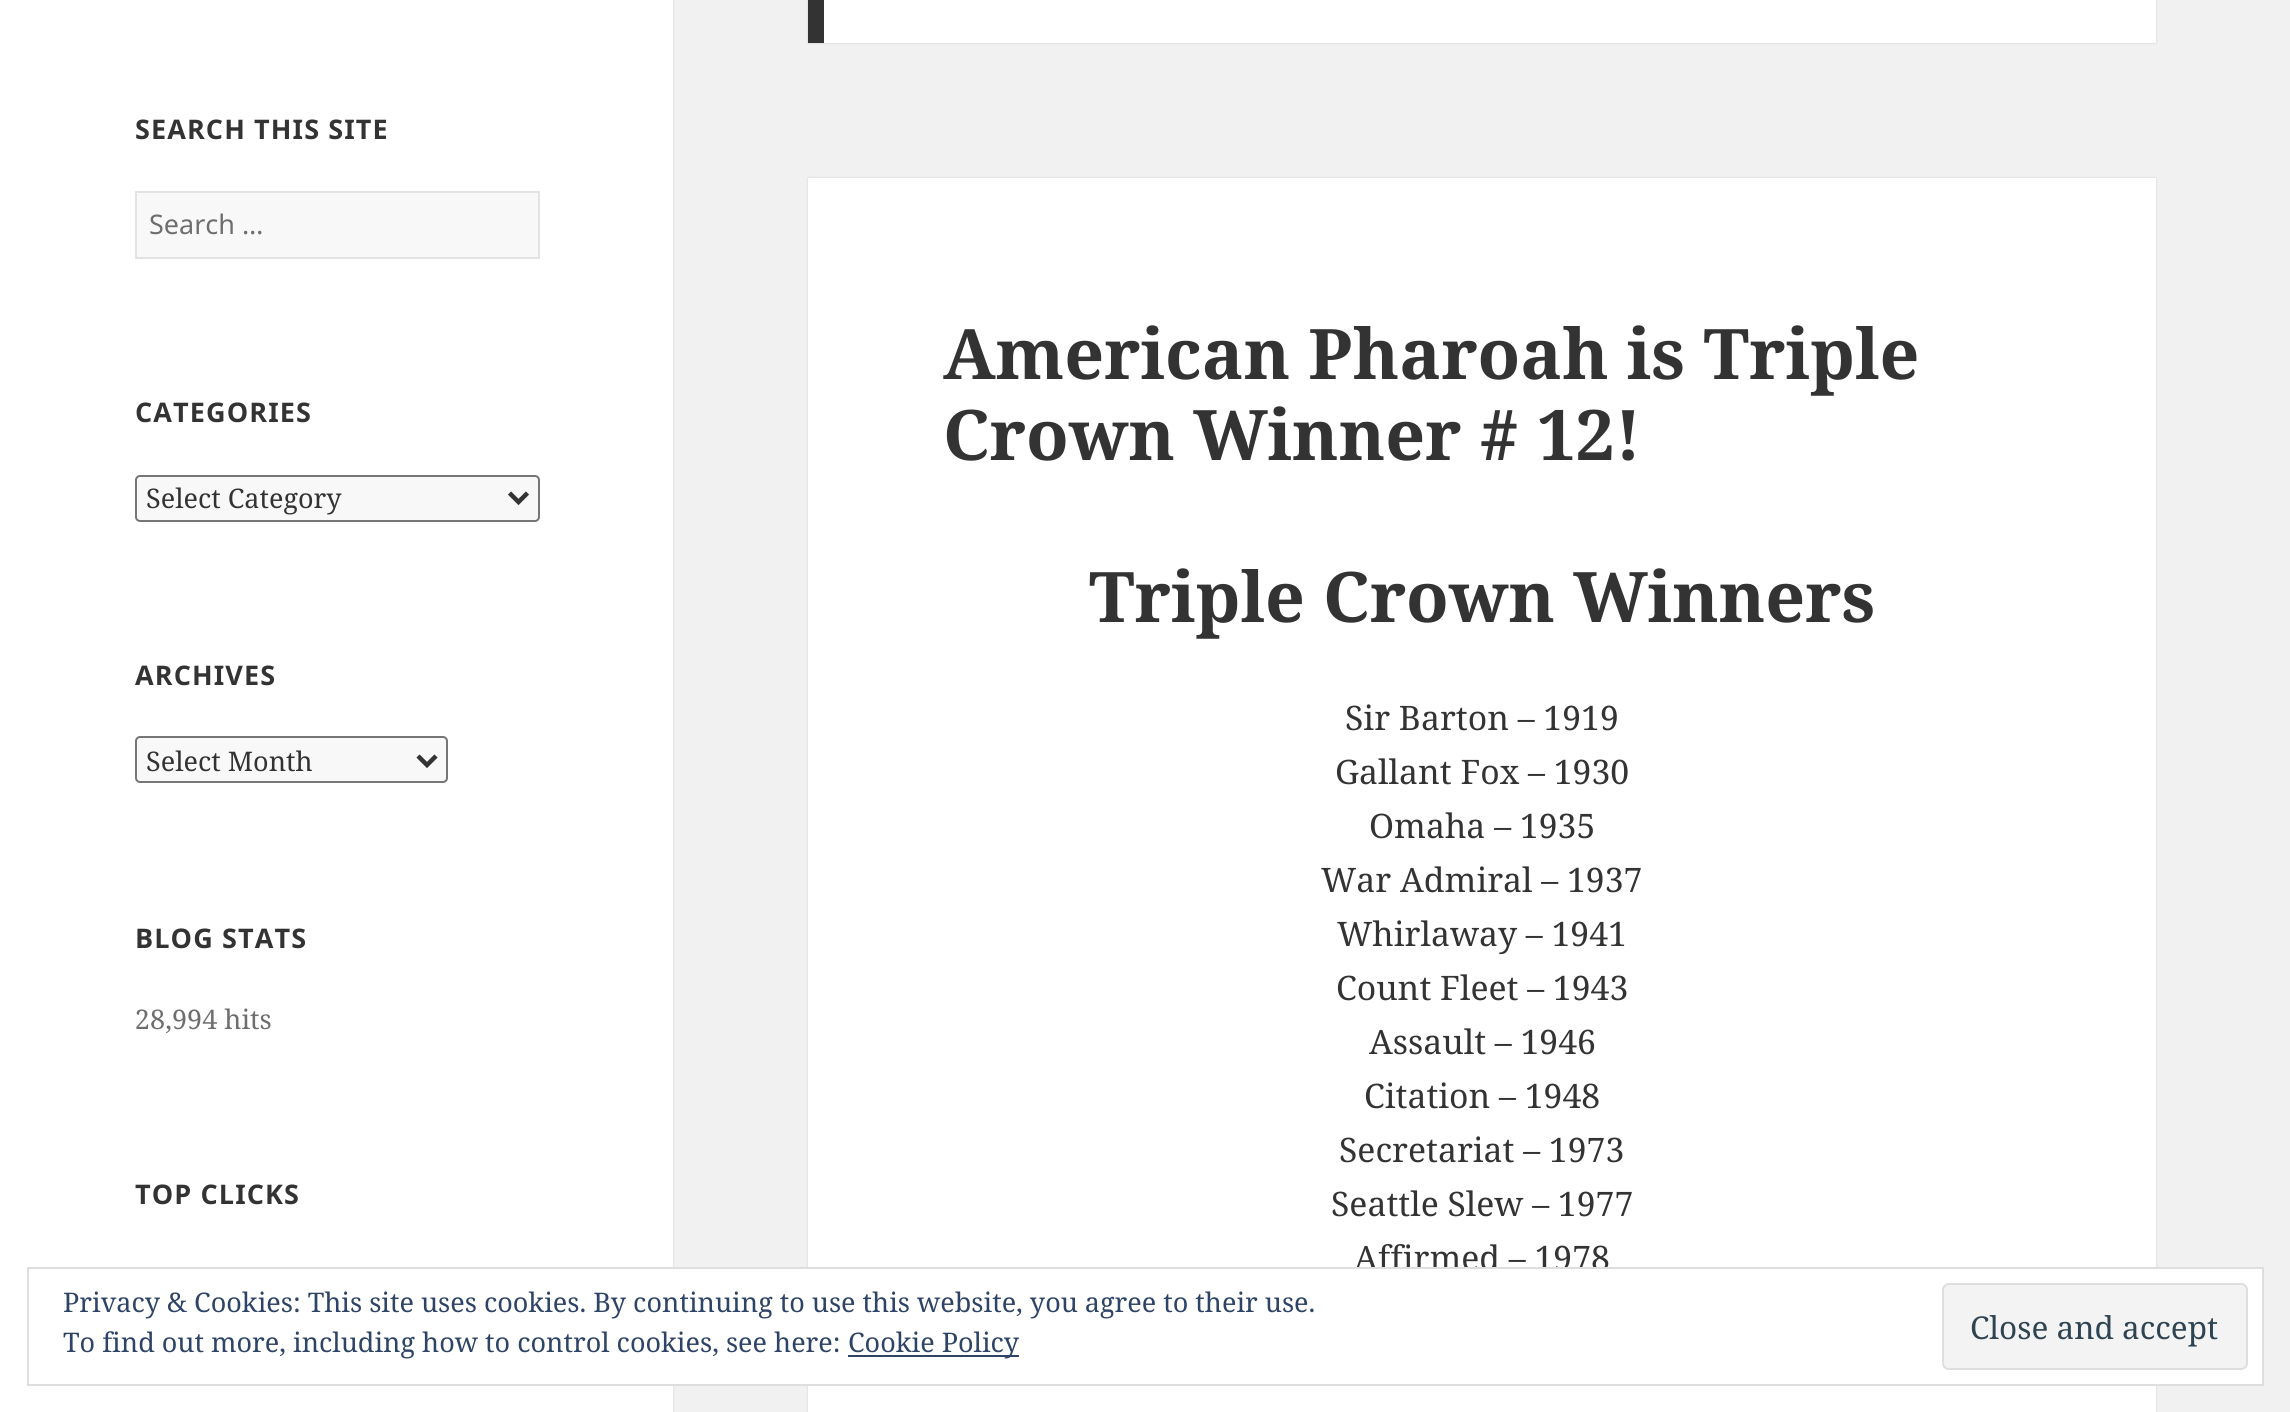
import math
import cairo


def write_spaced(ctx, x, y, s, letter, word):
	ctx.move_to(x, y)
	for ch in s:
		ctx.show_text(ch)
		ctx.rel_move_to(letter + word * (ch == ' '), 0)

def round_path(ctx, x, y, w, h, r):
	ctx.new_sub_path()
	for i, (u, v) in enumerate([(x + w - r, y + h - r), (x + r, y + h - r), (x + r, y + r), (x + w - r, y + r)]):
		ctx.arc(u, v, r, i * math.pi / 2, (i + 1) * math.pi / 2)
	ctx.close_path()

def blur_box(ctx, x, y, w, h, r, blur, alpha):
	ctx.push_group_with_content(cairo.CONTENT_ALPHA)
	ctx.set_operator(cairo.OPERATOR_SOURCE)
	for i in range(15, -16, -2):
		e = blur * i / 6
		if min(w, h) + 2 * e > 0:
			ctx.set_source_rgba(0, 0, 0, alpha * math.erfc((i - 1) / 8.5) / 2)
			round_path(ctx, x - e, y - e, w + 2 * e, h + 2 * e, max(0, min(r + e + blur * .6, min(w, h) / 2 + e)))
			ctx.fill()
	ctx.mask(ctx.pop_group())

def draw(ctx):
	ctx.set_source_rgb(0.945, 0.945, 0.945)
	ctx.paint()
	ctx.set_source_rgb(0, 0, 0)
	blur_box(ctx, 0, 0, 673, 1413, 0, 1, 0.15)
	ctx.set_source_rgb(1, 1, 1)
	ctx.rectangle(0, 0, 673, 1412)
	ctx.fill()
	ctx.select_font_face('Noto Sans', cairo.FONT_SLANT_NORMAL, cairo.FONT_WEIGHT_BOLD)
	ctx.set_font_size(27)
	ctx.set_source_rgb(0.2, 0.2, 0.2)
	write_spaced(ctx, 135, 139, 'SEARCH THIS SITE', 1.1, 0)
	ctx.set_source_rgb(0.969, 0.969, 0.969)
	ctx.rectangle(136, 192, 403, 66)
	ctx.fill_preserve()
	ctx.set_source_rgb(0.89, 0.89, 0.89)
	ctx.stroke()
	ctx.select_font_face('Noto Sans')
	ctx.set_source_rgb(0.431, 0.431, 0.431)
	ctx.move_to(149, 234)
	ctx.show_text('Search …')
	ctx.select_font_face('Noto Sans', cairo.FONT_SLANT_NORMAL, cairo.FONT_WEIGHT_BOLD)
	ctx.set_source_rgb(0.2, 0.2, 0.2)
	write_spaced(ctx, 135, 422, 'CATEGORIES', 1.1, 0)
	ctx.set_source_rgb(0.969, 0.969, 0.969)
	round_path(ctx, 136, 476, 403, 45, 4)
	ctx.fill_preserve()
	ctx.set_source_rgb(0.463, 0.463, 0.463)
	ctx.stroke()
	ctx.new_path()
	ctx.move_to(509.5, 493)
	ctx.line_to(518.5, 502)
	ctx.line_to(527.5, 493)
	ctx.set_source_rgb(0.2, 0.2, 0.2)
	ctx.set_line_width(4.5)
	ctx.stroke()
	ctx.select_font_face('Noto Serif')
	ctx.move_to(146, 508)
	ctx.show_text('Select Category')
	ctx.select_font_face('Noto Sans', cairo.FONT_SLANT_NORMAL, cairo.FONT_WEIGHT_BOLD)
	write_spaced(ctx, 135, 685, 'ARCHIVES', 1.1, 0)
	ctx.set_source_rgb(0.969, 0.969, 0.969)
	round_path(ctx, 136, 737, 311, 45, 4)
	ctx.fill_preserve()
	ctx.set_source_rgb(0.463, 0.463, 0.463)
	ctx.set_line_width(2)
	ctx.stroke()
	ctx.new_path()
	ctx.move_to(418, 756)
	ctx.line_to(427, 765)
	ctx.line_to(436, 756)
	ctx.set_source_rgb(0.2, 0.2, 0.2)
	ctx.set_line_width(4.5)
	ctx.stroke()
	ctx.select_font_face('Noto Serif')
	ctx.move_to(146, 771)
	ctx.show_text('Select Month')
	ctx.select_font_face('Noto Sans', cairo.FONT_SLANT_NORMAL, cairo.FONT_WEIGHT_BOLD)
	write_spaced(ctx, 135, 948, 'BLOG STATS', 1.1, 0)
	ctx.select_font_face('Noto Serif')
	ctx.set_source_rgb(0.431, 0.431, 0.431)
	ctx.move_to(135, 1029)
	ctx.show_text('28,994 hits')
	ctx.select_font_face('Noto Sans', cairo.FONT_SLANT_NORMAL, cairo.FONT_WEIGHT_BOLD)
	ctx.set_source_rgb(0.2, 0.2, 0.2)
	write_spaced(ctx, 135, 1204, 'TOP CLICKS', 1.1, 0)
	ctx.set_source_rgb(0, 0, 0)
	blur_box(ctx, 808, -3, 1348, 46, 0, 1, 0.15)
	ctx.set_source_rgb(1, 1, 1)
	ctx.rectangle(824, 0, 1332, 43)
	ctx.fill()
	ctx.set_source_rgb(0.2, 0.2, 0.2)
	ctx.rectangle(808, 0, 16, 43)
	ctx.fill()
	ctx.set_source_rgb(0, 0, 0)
	blur_box(ctx, 808, 178, 1348, 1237, 0, 1, 0.15)
	ctx.set_source_rgb(1, 1, 1)
	ctx.rectangle(808, 178, 1348, 1234)
	ctx.fill()
	ctx.select_font_face('Noto Serif', cairo.FONT_SLANT_NORMAL, cairo.FONT_WEIGHT_BOLD)
	ctx.set_font_size(69.75)
	ctx.set_source_rgb(0.2, 0.2, 0.2)
	for x, y, s in [
		(943, 379, 'American Pharoah is Triple'),
		(943, 460, 'Crown Winner # 12!'),
		(1089, 622, 'Triple Crown Winners'),
	]:
		ctx.move_to(x, y)
		ctx.show_text(s)
	ctx.select_font_face('Noto Serif')
	ctx.set_font_size(33.75)
	for x, y, s in [
		(1345, 730, 'Sir Barton – 1919'),
		(1335, 784, 'Gallant Fox – 1930'),
		(1369, 838, 'Omaha – 1935'),
		(1321, 892, 'War Admiral – 1937'),
		(1337, 946, 'Whirlaway – 1941'),
		(1336, 1000, 'Count Fleet – 1943'),
		(1369, 1054, 'Assault – 1946'),
		(1364, 1108, 'Citation – 1948'),
		(1339, 1162, 'Secretariat – 1973'),
		(1331, 1216, 'Seattle Slew – 1977'),
		(1354, 1270, 'Affirmed – 1978'),
	]:
		ctx.move_to(x, y)
		ctx.show_text(s)
	ctx.set_source_rgb(1, 1, 1)
	ctx.rectangle(673, 1269, 1589, 115)
	ctx.fill()
	ctx.rectangle(28, 1268, 2235, 117)
	ctx.set_source_rgb(0.871, 0.871, 0.871)
	ctx.set_line_width(2)
	ctx.stroke()
	ctx.set_font_size(27)
	ctx.set_source_rgb(0.18, 0.267, 0.404)
	ctx.move_to(63, 1312)
	ctx.show_text('Privacy & Cookies: This site uses cookies. By continuing to use this website, you agree to their use.')
	ctx.move_to(63, 1352)
	ctx.show_text('To find out more, including how to control cookies, see here:')
	ctx.rectangle(848, 1355, 171, 2)
	ctx.fill()
	ctx.move_to(848, 1352)
	ctx.show_text('Cookie Policy')
	ctx.set_source_rgb(0.953, 0.953, 0.953)
	round_path(ctx, 1943, 1284, 304, 85, 6)
	ctx.fill_preserve()
	ctx.set_source_rgb(0.871, 0.871, 0.871)
	ctx.stroke()
	ctx.set_font_size(31.5)
	ctx.set_source_rgb(0.18, 0.267, 0.325)
	ctx.move_to(1970, 1339)
	ctx.show_text('Close and accept')


surface = cairo.ImageSurface(cairo.FORMAT_RGB24, 2290, 1412)
ctx = cairo.Context(surface)
options = cairo.FontOptions()
options.set_hint_metrics(cairo.HINT_METRICS_OFF)
options.set_hint_style(cairo.HINT_STYLE_NONE)
ctx.set_font_options(options)
ctx.set_miter_limit(4)
draw(ctx)
surface.write_to_png('image.png')
